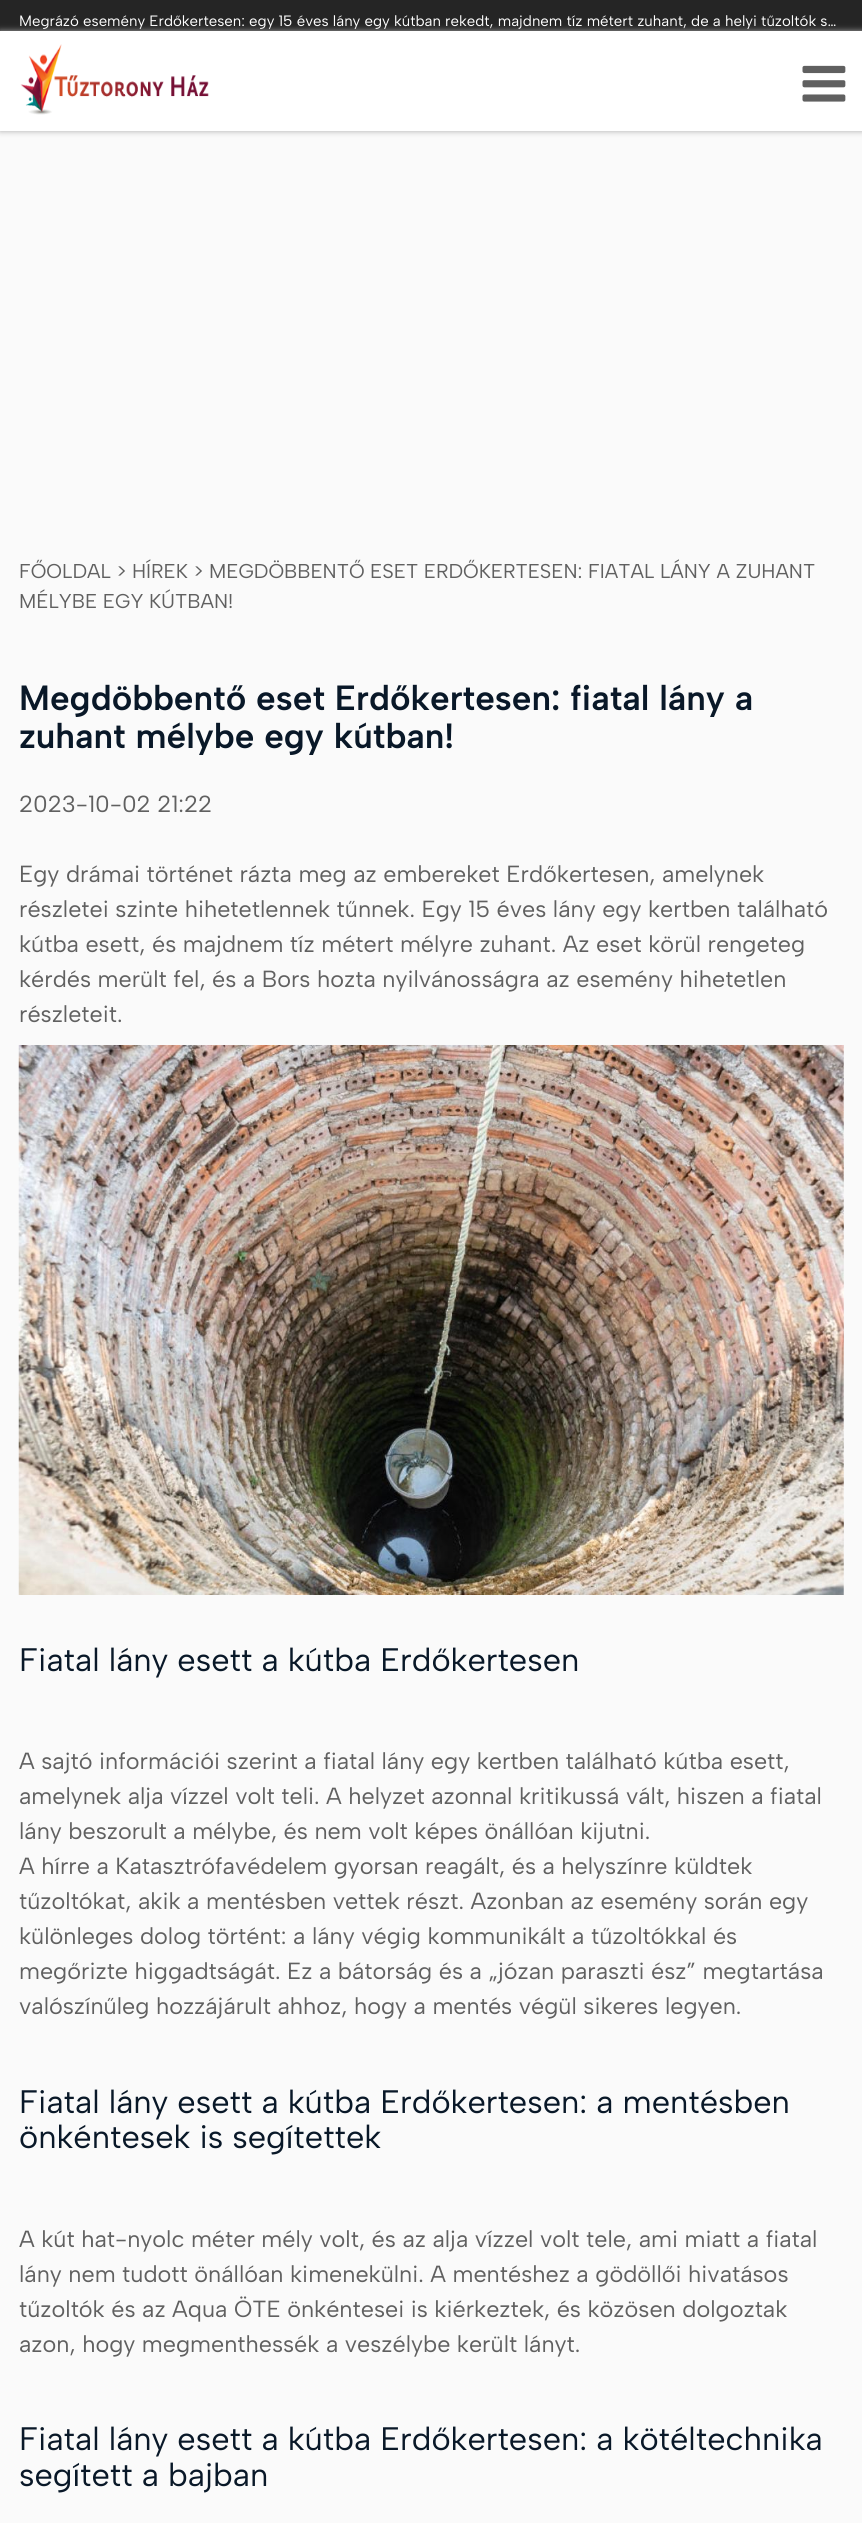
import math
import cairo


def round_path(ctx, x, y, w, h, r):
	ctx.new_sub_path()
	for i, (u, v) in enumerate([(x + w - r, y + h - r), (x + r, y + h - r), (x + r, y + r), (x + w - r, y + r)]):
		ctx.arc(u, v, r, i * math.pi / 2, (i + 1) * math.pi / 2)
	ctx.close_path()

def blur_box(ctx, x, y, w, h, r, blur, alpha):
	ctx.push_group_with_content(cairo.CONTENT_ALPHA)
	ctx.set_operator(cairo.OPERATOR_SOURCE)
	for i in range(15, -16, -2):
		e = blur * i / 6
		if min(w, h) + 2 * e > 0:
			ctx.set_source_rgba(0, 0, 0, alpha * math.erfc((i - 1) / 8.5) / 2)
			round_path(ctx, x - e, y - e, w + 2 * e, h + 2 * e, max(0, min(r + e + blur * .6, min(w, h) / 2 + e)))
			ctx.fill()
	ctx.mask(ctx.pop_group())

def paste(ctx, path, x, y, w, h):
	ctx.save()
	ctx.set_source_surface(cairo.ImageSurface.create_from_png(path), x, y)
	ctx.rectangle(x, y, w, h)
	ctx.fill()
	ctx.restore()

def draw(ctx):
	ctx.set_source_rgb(0.98, 0.98, 0.98)
	ctx.paint()
	ctx.set_source_rgb(0.145, 0.145, 0.145)
	ctx.rectangle(0, 0, 862, 31)
	ctx.fill()
	ctx.select_font_face('Albert Sans')
	ctx.set_font_size(15)
	ctx.set_source_rgb(1, 1, 1)
	ctx.move_to(19, 26)
	ctx.show_text('Megrázó esemény Erdőkertesen: egy 15 éves lány egy kútban rekedt, majdnem tíz métert zuhant, de a helyi tűzoltók s…')
	ctx.set_source_rgb(0.667, 0.667, 0.667)
	blur_box(ctx, 0, 31, 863, 100, 0, 3, 1)
	ctx.set_source_rgb(1, 1, 1)
	ctx.rectangle(0, 31, 862, 100)
	ctx.fill()
	paste(ctx, 'media/1.png', 20, 44, 189, 71)
	paste(ctx, 'media/2.png', 802, 65, 44, 37)
	ctx.set_font_size(20)
	ctx.set_source_rgb(0.376, 0.376, 0.376)
	ctx.move_to(19, 578)
	ctx.show_text('FŐOLDAL > HÍREK > MEGDÖBBENTŐ ESET ERDŐKERTESEN: FIATAL LÁNY A ZUHANT')
	ctx.move_to(19, 608)
	ctx.show_text('MÉLYBE EGY KÚTBAN!')
	ctx.select_font_face('Albert Sans SemiBold')
	ctx.set_font_size(35)
	ctx.set_source_rgb(0.039, 0.094, 0.157)
	ctx.move_to(19, 710)
	ctx.show_text('Megdöbbentő eset Erdőkertesen: fiatal lány a')
	ctx.move_to(19, 748)
	ctx.show_text('zuhant mélybe egy kútban!')
	ctx.select_font_face('Albert Sans')
	ctx.set_font_size(23.35)
	ctx.set_source_rgb(0.376, 0.376, 0.376)
	for x, y, s in [
		(19, 812, '2023-10-02 21:22'),
		(19, 882, 'Egy drámai történet rázta meg az embereket Erdőkertesen, amelynek'),
		(19, 917, 'részletei szinte hihetetlennek tűnnek. Egy 15 éves lány egy kertben található'),
		(19, 952, 'kútba esett, és majdnem tíz métert mélyre zuhant. Az eset körül rengeteg'),
		(19, 987, 'kérdés merült fel, és a Bors hozta nyilvánosságra az esemény hihetetlen'),
		(19, 1022, 'részleteit.'),
	]:
		ctx.move_to(x, y)
		ctx.show_text(s)
	paste(ctx, 'media/3.png', 18, 1045, 826, 550)
	ctx.set_font_size(32.5)
	ctx.set_source_rgb(0.039, 0.094, 0.157)
	ctx.move_to(19, 1671)
	ctx.show_text('Fiatal lány esett a kútba Erdőkertesen')
	ctx.set_font_size(23.35)
	ctx.set_source_rgb(0.376, 0.376, 0.376)
	for x, y, s in [
		(19, 1769, 'A sajtó információi szerint a fiatal lány egy kertben található kútba esett,'),
		(19, 1804, 'amelynek alja vízzel volt teli. A helyzet azonnal kritikussá vált, hiszen a fiatal'),
		(19, 1839, 'lány beszorult a mélybe, és nem volt képes önállóan kijutni.'),
		(19, 1874, 'A hírre a Katasztrófavédelem gyorsan reagált, és a helyszínre küldtek'),
		(19, 1909, 'tűzoltókat, akik a mentésben vettek részt. Azonban az esemény során egy'),
		(19, 1944, 'különleges dolog történt: a lány végig kommunikált a tűzoltókkal és'),
		(19, 1979, 'megőrizte higgadtságát. Ez a bátorság és a „józan paraszti ész” megtartása'),
		(19, 2014, 'valószínűleg hozzájárult ahhoz, hogy a mentés végül sikeres legyen.'),
	]:
		ctx.move_to(x, y)
		ctx.show_text(s)
	ctx.set_font_size(32.5)
	ctx.set_source_rgb(0.039, 0.094, 0.157)
	ctx.move_to(19, 2113)
	ctx.show_text('Fiatal lány esett a kútba Erdőkertesen: a mentésben')
	ctx.move_to(19, 2148)
	ctx.show_text('önkéntesek is segítettek')
	ctx.set_font_size(23.35)
	ctx.set_source_rgb(0.376, 0.376, 0.376)
	for x, y, s in [
		(19, 2247, 'A kút hat-nyolc méter mély volt, és az alja vízzel volt tele, ami miatt a fiatal'),
		(19, 2282, 'lány nem tudott önállóan kimenekülni. A mentéshez a gödöllői hivatásos'),
		(19, 2317, 'tűzoltók és az Aqua ÖTE önkéntesei is kiérkeztek, és közösen dolgoztak'),
		(19, 2352, 'azon, hogy megmenthessék a veszélybe került lányt.'),
	]:
		ctx.move_to(x, y)
		ctx.show_text(s)
	ctx.set_font_size(32.5)
	ctx.set_source_rgb(0.039, 0.094, 0.157)
	ctx.move_to(19, 2450)
	ctx.show_text('Fiatal lány esett a kútba Erdőkertesen: a kötéltechnika')
	ctx.move_to(19, 2486)
	ctx.show_text('segített a bajban')


surface = cairo.ImageSurface(cairo.FORMAT_RGB24, 862, 2523)
ctx = cairo.Context(surface)
options = cairo.FontOptions()
options.set_hint_metrics(cairo.HINT_METRICS_OFF)
options.set_hint_style(cairo.HINT_STYLE_NONE)
ctx.set_font_options(options)
ctx.set_miter_limit(4)
draw(ctx)
surface.write_to_png('image.png')
